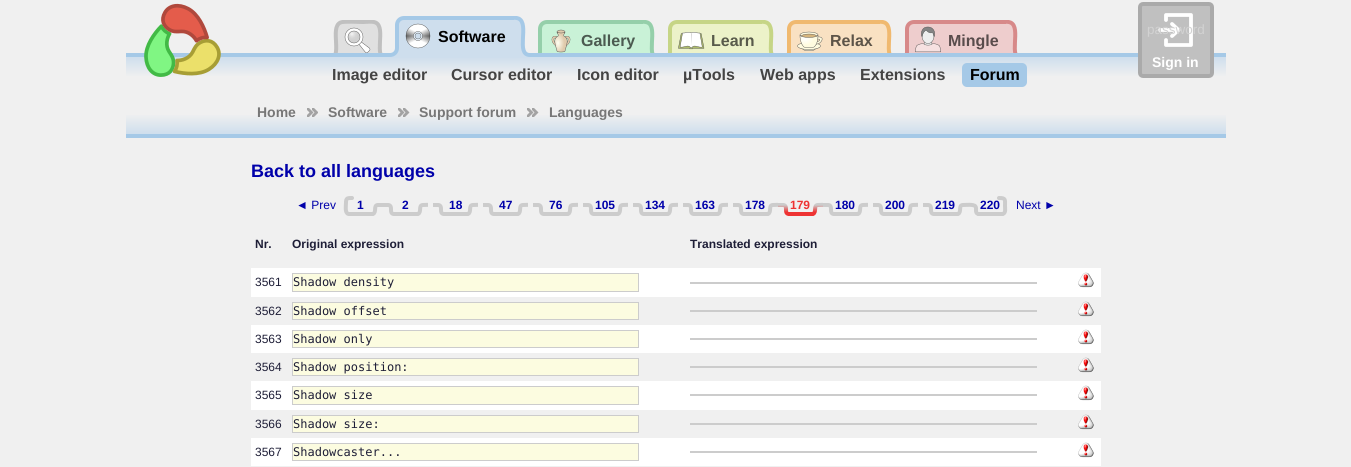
import math
import cairo


def round_path(ctx, x, y, w, h, r):
	ctx.new_sub_path()
	for i, (u, v) in enumerate([(x + w - r, y + h - r), (x + r, y + h - r), (x + r, y + r), (x + w - r, y + r)]):
		ctx.arc(u, v, r, i * math.pi / 2, (i + 1) * math.pi / 2)
	ctx.close_path()

def paste(ctx, path, x, y, w, h):
	ctx.save()
	ctx.set_source_surface(cairo.ImageSurface.create_from_png(path), x, y)
	ctx.rectangle(x, y, w, h)
	ctx.fill()
	ctx.restore()

def draw(ctx):
	ctx.set_source_rgb(0.941, 0.941, 0.941)
	ctx.paint()
	ctx.set_source_rgb(0.878, 0.878, 0.878)
	ctx.new_path()
	ctx.move_to(329, 59)
	ctx.curve_to(344, 59, 329, 27, 340, 23)
	ctx.curve_to(344, 21, 358, 22, 363, 22)
	ctx.curve_to(367, 22, 372, 21, 376, 23)
	ctx.curve_to(387, 27, 372, 59, 387, 59)
	ctx.line_to(387, 62)
	ctx.line_to(329, 62)
	ctx.close_path()
	ctx.fill()
	ctx.save()
	ctx.rectangle(329, 20, 58, 42)
	ctx.clip()
	ctx.new_path()
	ctx.move_to(329, 59)
	ctx.curve_to(344, 59, 329, 27.5, 340.5, 22.5)
	ctx.curve_to(344, 21, 358.5, 22, 363, 22)
	ctx.curve_to(367, 22, 372, 21, 375.5, 22.5)
	ctx.curve_to(387, 27.5, 372, 59, 387, 59)
	ctx.set_source_rgb(0.753, 0.753, 0.753)
	ctx.set_line_width(4)
	ctx.stroke()
	ctx.restore()
	ctx.set_source_rgb(0.788, 0.949, 0.843)
	ctx.new_path()
	ctx.move_to(609, 22)
	ctx.line_to(633, 22)
	ctx.curve_to(637, 22, 643, 21, 648, 23)
	ctx.curve_to(659, 27, 644, 59, 659, 59)
	ctx.line_to(659, 62)
	ctx.line_to(609, 62)
	ctx.close_path()
	ctx.fill()
	ctx.save()
	ctx.rectangle(609, 20, 50, 42)
	ctx.clip()
	ctx.new_path()
	ctx.move_to(609, 22)
	ctx.line_to(633, 22)
	ctx.curve_to(637.5, 22, 643.5, 21, 647.5, 22.5)
	ctx.curve_to(659, 27.5, 644, 59, 659, 59)
	ctx.set_source_rgb(0.584, 0.812, 0.667)
	ctx.set_line_width(4)
	ctx.stroke()
	ctx.restore()
	ctx.save()
	ctx.rectangle(533, 20, 110, 42)
	ctx.clip()
	ctx.new_path()
	ctx.move_to(533, 62)
	ctx.line_to(533, 59)
	ctx.curve_to(537, 59, 540, 56, 540, 52)
	ctx.line_to(540, 29)
	ctx.curve_to(540, 25, 543, 22, 547, 22)
	ctx.line_to(733, 22)
	ctx.line_to(733, 62)
	ctx.close_path()
	ctx.fill()
	ctx.new_path()
	ctx.move_to(533, 59)
	ctx.curve_to(537, 59, 540, 56, 540, 52)
	ctx.line_to(540, 29)
	ctx.curve_to(540, 25, 543, 22, 547, 22)
	ctx.line_to(733, 22)
	ctx.set_source_rgb(0.584, 0.812, 0.667)
	ctx.set_line_width(4)
	ctx.stroke()
	ctx.restore()
	ctx.set_source_rgb(0.922, 0.949, 0.788)
	ctx.new_path()
	ctx.move_to(728, 22)
	ctx.line_to(752, 22)
	ctx.curve_to(756, 22, 762, 21, 767, 23)
	ctx.curve_to(778, 27, 763, 59, 778, 59)
	ctx.line_to(778, 62)
	ctx.line_to(728, 62)
	ctx.close_path()
	ctx.fill()
	ctx.save()
	ctx.rectangle(728, 20, 50, 42)
	ctx.clip()
	ctx.new_path()
	ctx.move_to(728, 22)
	ctx.line_to(752, 22)
	ctx.curve_to(756.5, 22, 762.5, 21, 766.5, 22.5)
	ctx.curve_to(778, 27.5, 763, 59, 778, 59)
	ctx.set_source_rgb(0.776, 0.835, 0.525)
	ctx.set_line_width(4)
	ctx.stroke()
	ctx.restore()
	ctx.save()
	ctx.rectangle(663, 20, 99, 42)
	ctx.clip()
	ctx.new_path()
	ctx.move_to(663, 62)
	ctx.line_to(663, 59)
	ctx.curve_to(667, 59, 670, 56, 670, 52)
	ctx.line_to(670, 29)
	ctx.curve_to(670, 25, 673, 22, 677, 22)
	ctx.line_to(863, 22)
	ctx.line_to(863, 62)
	ctx.close_path()
	ctx.fill()
	ctx.new_path()
	ctx.move_to(663, 59)
	ctx.curve_to(667, 59, 670, 56, 670, 52)
	ctx.line_to(670, 29)
	ctx.curve_to(670, 25, 673, 22, 677, 22)
	ctx.line_to(863, 22)
	ctx.set_source_rgb(0.776, 0.835, 0.525)
	ctx.set_line_width(4)
	ctx.stroke()
	ctx.restore()
	ctx.set_source_rgb(0.976, 0.882, 0.761)
	ctx.new_path()
	ctx.move_to(846, 22)
	ctx.line_to(870, 22)
	ctx.curve_to(874, 22, 880, 21, 885, 23)
	ctx.curve_to(896, 27, 881, 59, 896, 59)
	ctx.line_to(896, 62)
	ctx.line_to(846, 62)
	ctx.close_path()
	ctx.fill()
	ctx.save()
	ctx.rectangle(846, 20, 50, 42)
	ctx.clip()
	ctx.new_path()
	ctx.move_to(846, 22)
	ctx.line_to(870, 22)
	ctx.curve_to(874.5, 22, 880.5, 21, 884.5, 22.5)
	ctx.curve_to(896, 27.5, 881, 59, 896, 59)
	ctx.set_source_rgb(0.941, 0.725, 0.435)
	ctx.set_line_width(4)
	ctx.stroke()
	ctx.restore()
	ctx.save()
	ctx.rectangle(782, 20, 98, 42)
	ctx.clip()
	ctx.new_path()
	ctx.move_to(782, 62)
	ctx.line_to(782, 59)
	ctx.curve_to(786, 59, 789, 56, 789, 52)
	ctx.line_to(789, 29)
	ctx.curve_to(789, 25, 792, 22, 796, 22)
	ctx.line_to(982, 22)
	ctx.line_to(982, 62)
	ctx.close_path()
	ctx.fill()
	ctx.new_path()
	ctx.move_to(782, 59)
	ctx.curve_to(786, 59, 789, 56, 789, 52)
	ctx.line_to(789, 29)
	ctx.curve_to(789, 25, 792, 22, 796, 22)
	ctx.line_to(982, 22)
	ctx.set_source_rgb(0.941, 0.725, 0.435)
	ctx.set_line_width(4)
	ctx.stroke()
	ctx.restore()
	ctx.set_source_rgb(0.933, 0.804, 0.804)
	ctx.new_path()
	ctx.move_to(972, 22)
	ctx.line_to(996, 22)
	ctx.curve_to(1000, 22, 1006, 21, 1011, 23)
	ctx.curve_to(1022, 27, 1007, 59, 1022, 59)
	ctx.line_to(1022, 62)
	ctx.line_to(972, 62)
	ctx.close_path()
	ctx.fill()
	ctx.save()
	ctx.rectangle(972, 20, 50, 42)
	ctx.clip()
	ctx.new_path()
	ctx.move_to(972, 22)
	ctx.line_to(996, 22)
	ctx.curve_to(1000.5, 22, 1006.5, 21, 1010.5, 22.5)
	ctx.curve_to(1022, 27.5, 1007, 59, 1022, 59)
	ctx.set_source_rgb(0.843, 0.537, 0.537)
	ctx.set_line_width(4)
	ctx.stroke()
	ctx.restore()
	ctx.save()
	ctx.rectangle(900, 20, 106, 42)
	ctx.clip()
	ctx.new_path()
	ctx.move_to(900, 62)
	ctx.line_to(900, 59)
	ctx.curve_to(904, 59, 907, 56, 907, 52)
	ctx.line_to(907, 29)
	ctx.curve_to(907, 25, 910, 22, 914, 22)
	ctx.line_to(1100, 22)
	ctx.line_to(1100, 62)
	ctx.close_path()
	ctx.fill()
	ctx.new_path()
	ctx.move_to(900, 59)
	ctx.curve_to(904, 59, 907, 56, 907, 52)
	ctx.line_to(907, 29)
	ctx.curve_to(907, 25, 910, 22, 914, 22)
	ctx.line_to(1100, 22)
	ctx.set_source_rgb(0.843, 0.537, 0.537)
	ctx.set_line_width(4)
	ctx.stroke()
	ctx.restore()
	gradient = cairo.LinearGradient(676, 53, 676, 103)
	gradient.add_color_stop_rgba(0, 0.647, 0.788, 0.906, 1)
	gradient.add_color_stop_rgba(0.08, 0.647, 0.788, 0.906, 1)
	gradient.add_color_stop_rgba(0.08, 0.808, 0.871, 0.929, 1)
	gradient.add_color_stop_rgba(0.48, 0.941, 0.941, 0.941, 1)
	ctx.set_source(gradient)
	ctx.rectangle(126, 53, 1100, 23)
	ctx.fill()
	paste(ctx, 'media/1.png', 144, 3, 77, 74)
	paste(ctx, 'media/2.png', 344, 27, 27, 26)
	ctx.set_source_rgb(0.808, 0.871, 0.929)
	ctx.new_path()
	ctx.move_to(480, 18)
	ctx.line_to(504, 18)
	ctx.curve_to(508, 18, 514, 17, 519, 19)
	ctx.curve_to(530, 23, 515, 55, 530, 55)
	ctx.line_to(530, 58)
	ctx.line_to(480, 58)
	ctx.close_path()
	ctx.fill()
	ctx.save()
	ctx.rectangle(480, 16, 50, 42)
	ctx.clip()
	ctx.new_path()
	ctx.move_to(480, 18)
	ctx.line_to(504, 18)
	ctx.curve_to(508.5, 18, 514.5, 17, 518.5, 18.5)
	ctx.curve_to(530, 23.5, 515, 55, 530, 55)
	ctx.set_source_rgb(0.647, 0.788, 0.906)
	ctx.set_line_width(4)
	ctx.stroke()
	ctx.restore()
	ctx.save()
	ctx.rectangle(390, 16, 124, 42)
	ctx.clip()
	ctx.new_path()
	ctx.move_to(390, 58)
	ctx.line_to(390, 55)
	ctx.curve_to(394, 55, 397, 52, 397, 48)
	ctx.line_to(397, 25)
	ctx.curve_to(397, 21, 400, 18, 404, 18)
	ctx.line_to(590, 18)
	ctx.line_to(590, 58)
	ctx.close_path()
	ctx.fill()
	ctx.new_path()
	ctx.move_to(390, 55)
	ctx.curve_to(394, 55, 397, 52, 397, 48)
	ctx.line_to(397, 25)
	ctx.curve_to(397, 21, 400, 18, 404, 18)
	ctx.line_to(590, 18)
	ctx.set_source_rgb(0.647, 0.788, 0.906)
	ctx.set_line_width(4)
	ctx.stroke()
	ctx.restore()
	paste(ctx, 'media/3.png', 405, 23, 26, 26)
	ctx.select_font_face('Liberation Sans', cairo.FONT_SLANT_NORMAL, cairo.FONT_WEIGHT_BOLD)
	ctx.set_font_size(16)
	ctx.set_source_rgb(0, 0, 0)
	ctx.move_to(438, 42)
	ctx.show_text('Software')
	ctx.set_source_rgb(0.267, 0.267, 0.267)
	for x, y, s in [
		(332, 80, 'Image editor'),
		(451, 80, 'Cursor editor'),
		(577, 80, 'Icon editor'),
		(683, 80, 'µTools'),
		(760, 80, 'Web apps'),
		(860, 80, 'Extensions'),
	]:
		ctx.move_to(x, y)
		ctx.show_text(s)
	ctx.set_source_rgb(0.647, 0.788, 0.906)
	round_path(ctx, 962, 63, 65, 24, 5)
	ctx.fill()
	ctx.set_source_rgb(0, 0, 0)
	ctx.move_to(970, 80)
	ctx.show_text('Forum')
	paste(ctx, 'media/4.png', 551, 29, 20, 24)
	ctx.set_source_rgb(0.294, 0.353, 0.314)
	ctx.move_to(581, 46)
	ctx.show_text('Gallery')
	paste(ctx, 'media/5.png', 678, 32, 27, 18)
	ctx.set_source_rgb(0.345, 0.353, 0.294)
	ctx.move_to(711, 46)
	ctx.show_text('Learn')
	paste(ctx, 'media/6.png', 797, 31, 26, 20)
	ctx.set_source_rgb(0.365, 0.329, 0.282)
	ctx.move_to(830, 46)
	ctx.show_text('Relax')
	paste(ctx, 'media/7.png', 915, 26, 26, 27)
	ctx.set_source_rgb(0.349, 0.298, 0.298)
	ctx.move_to(948, 46)
	ctx.show_text('Mingle')
	ctx.set_source_rgb(0.753, 0.753, 0.753)
	round_path(ctx, 1140, 4, 72, 72, 3)
	ctx.fill_preserve()
	ctx.set_source_rgb(0.667, 0.667, 0.667)
	ctx.set_line_width(4)
	ctx.stroke()
	ctx.new_path()
	ctx.move_to(1166, 20)
	ctx.line_to(1166, 15)
	ctx.line_to(1191, 15)
	ctx.line_to(1191, 45)
	ctx.line_to(1166, 45)
	ctx.line_to(1166, 40)
	ctx.move_to(1160, 30)
	ctx.line_to(1178.5, 30)
	ctx.move_to(1172, 24)
	ctx.line_to(1178.5, 30)
	ctx.line_to(1172, 36)
	ctx.set_source_rgb(1, 1, 1)
	ctx.set_line_width(3.8)
	ctx.set_line_cap(cairo.LINE_CAP_ROUND)
	ctx.set_line_join(cairo.LINE_JOIN_ROUND)
	ctx.stroke()
	ctx.select_font_face('Liberation Sans')
	ctx.set_font_size(13.5)
	ctx.set_source_rgb(0.824, 0.824, 0.824)
	ctx.move_to(1147, 34)
	ctx.show_text('password')
	ctx.select_font_face('Liberation Sans', cairo.FONT_SLANT_NORMAL, cairo.FONT_WEIGHT_BOLD)
	ctx.set_font_size(14)
	ctx.set_source_rgb(1, 1, 1)
	ctx.move_to(1152, 67)
	ctx.show_text('Sign in')
	gradient = cairo.LinearGradient(676, 134, 676, 62)
	gradient.add_color_stop_rgba(0, 0.808, 0.871, 0.929, 1)
	gradient.add_color_stop_rgba(0.28, 0.941, 0.941, 0.941, 1)
	ctx.set_source(gradient)
	ctx.rectangle(126, 115, 1100, 19)
	ctx.fill()
	ctx.set_source_rgb(0.647, 0.788, 0.906)
	ctx.rectangle(126, 134, 1100, 4)
	ctx.fill()
	ctx.set_source_rgb(0.467, 0.467, 0.467)
	ctx.move_to(257, 117)
	ctx.show_text('Home')
	paste(ctx, 'media/8.png', 307, 108, 11, 9)
	ctx.move_to(328, 117)
	ctx.show_text('Software')
	paste(ctx, 'media/9.png', 398, 108, 12, 9)
	ctx.move_to(419, 117)
	ctx.show_text('Support forum')
	paste(ctx, 'media/9.png', 527, 108, 12, 9)
	ctx.move_to(549, 117)
	ctx.show_text('Languages')
	ctx.set_font_size(18)
	ctx.set_source_rgb(0, 0, 0.667)
	ctx.move_to(251, 177)
	ctx.show_text('Back to all languages')
	ctx.select_font_face('Liberation Sans')
	ctx.set_font_size(12)
	ctx.move_to(296, 209)
	ctx.show_text('◄ Prev')
	ctx.save()
	ctx.rectangle(338, 196, 45, 20)
	ctx.clip()
	ctx.new_path()
	ctx.move_to(352, 198)
	ctx.curve_to(347.5, 198, 346, 198, 346, 202.5)
	ctx.curve_to(346, 205.5, 344.5, 213, 348.5, 214)
	ctx.line_to(373, 214)
	ctx.curve_to(377, 212, 373, 205, 378, 205)
	ctx.line_to(388.5, 205)
	ctx.curve_to(393.5, 206, 388.5, 213, 393.5, 214)
	ctx.line_to(418, 214)
	ctx.curve_to(422, 212, 418, 205, 423, 205)
	ctx.curve_to(425.5, 205, 434, 204, 435.5, 206.5)
	ctx.curve_to(437, 208.5, 434.5, 212.5, 438, 214)
	ctx.line_to(463, 214)
	ctx.curve_to(466, 212.5, 465, 208.5, 465, 206)
	ctx.curve_to(465, 199.5, 466, 198, 459, 198)
	ctx.set_source_rgb(0.8, 0.8, 0.8)
	ctx.set_line_width(4)
	ctx.set_line_join(cairo.LINE_JOIN_MITER)
	ctx.stroke()
	ctx.restore()
	ctx.select_font_face('Liberation Sans', cairo.FONT_SLANT_NORMAL, cairo.FONT_WEIGHT_BOLD)
	ctx.move_to(357, 209)
	ctx.show_text('1')
	ctx.save()
	ctx.rectangle(383, 196, 45, 20)
	ctx.clip()
	ctx.new_path()
	ctx.move_to(352, 198)
	ctx.curve_to(347.5, 198, 346, 198, 346, 202.5)
	ctx.curve_to(346, 205.5, 344.5, 213, 348.5, 214)
	ctx.line_to(373, 214)
	ctx.curve_to(377, 212, 373, 205, 378, 205)
	ctx.line_to(388.5, 205)
	ctx.curve_to(393.5, 206, 388.5, 213, 393.5, 214)
	ctx.line_to(418, 214)
	ctx.curve_to(422, 212, 418, 205, 423, 205)
	ctx.curve_to(425.5, 205, 434, 204, 435.5, 206.5)
	ctx.curve_to(437, 208.5, 434.5, 212.5, 438, 214)
	ctx.line_to(463, 214)
	ctx.curve_to(466, 212.5, 465, 208.5, 465, 206)
	ctx.curve_to(465, 199.5, 466, 198, 459, 198)
	ctx.set_source_rgb(0.8, 0.8, 0.8)
	ctx.set_line_width(4)
	ctx.set_line_join(cairo.LINE_JOIN_MITER)
	ctx.stroke()
	ctx.restore()
	ctx.move_to(402, 209)
	ctx.show_text('2')
	ctx.save()
	ctx.rectangle(433, 196, 45, 20)
	ctx.clip()
	ctx.new_path()
	ctx.move_to(402, 198)
	ctx.curve_to(397.5, 198, 396, 198, 396, 202.5)
	ctx.curve_to(396, 205.5, 394.5, 213, 398.5, 214)
	ctx.line_to(423, 214)
	ctx.curve_to(427, 212, 423, 205, 428, 205)
	ctx.line_to(438.5, 205)
	ctx.curve_to(443.5, 206, 438.5, 213, 443.5, 214)
	ctx.line_to(468, 214)
	ctx.curve_to(472, 212, 468, 205, 473, 205)
	ctx.curve_to(475.5, 205, 484, 204, 485.5, 206.5)
	ctx.curve_to(487, 208.5, 484.5, 212.5, 488, 214)
	ctx.line_to(513, 214)
	ctx.curve_to(516, 212.5, 515, 208.5, 515, 206)
	ctx.curve_to(515, 199.5, 516, 198, 509, 198)
	ctx.set_source_rgb(0.8, 0.8, 0.8)
	ctx.set_line_width(4)
	ctx.set_line_join(cairo.LINE_JOIN_MITER)
	ctx.stroke()
	ctx.restore()
	ctx.move_to(449, 209)
	ctx.show_text('18')
	ctx.save()
	ctx.rectangle(483, 196, 45, 20)
	ctx.clip()
	ctx.new_path()
	ctx.move_to(452, 198)
	ctx.curve_to(447.5, 198, 446, 198, 446, 202.5)
	ctx.curve_to(446, 205.5, 444.5, 213, 448.5, 214)
	ctx.line_to(473, 214)
	ctx.curve_to(477, 212, 473, 205, 478, 205)
	ctx.line_to(488.5, 205)
	ctx.curve_to(493.5, 206, 488.5, 213, 493.5, 214)
	ctx.line_to(518, 214)
	ctx.curve_to(522, 212, 518, 205, 523, 205)
	ctx.curve_to(525.5, 205, 534, 204, 535.5, 206.5)
	ctx.curve_to(537, 208.5, 534.5, 212.5, 538, 214)
	ctx.line_to(563, 214)
	ctx.curve_to(566, 212.5, 565, 208.5, 565, 206)
	ctx.curve_to(565, 199.5, 566, 198, 559, 198)
	ctx.set_source_rgb(0.8, 0.8, 0.8)
	ctx.set_line_width(4)
	ctx.set_line_join(cairo.LINE_JOIN_MITER)
	ctx.stroke()
	ctx.restore()
	ctx.move_to(499, 209)
	ctx.show_text('47')
	ctx.save()
	ctx.rectangle(533, 196, 45, 20)
	ctx.clip()
	ctx.new_path()
	ctx.move_to(502, 198)
	ctx.curve_to(497.5, 198, 496, 198, 496, 202.5)
	ctx.curve_to(496, 205.5, 494.5, 213, 498.5, 214)
	ctx.line_to(523, 214)
	ctx.curve_to(527, 212, 523, 205, 528, 205)
	ctx.line_to(538.5, 205)
	ctx.curve_to(543.5, 206, 538.5, 213, 543.5, 214)
	ctx.line_to(568, 214)
	ctx.curve_to(572, 212, 568, 205, 573, 205)
	ctx.curve_to(575.5, 205, 584, 204, 585.5, 206.5)
	ctx.curve_to(587, 208.5, 584.5, 212.5, 588, 214)
	ctx.line_to(613, 214)
	ctx.curve_to(616, 212.5, 615, 208.5, 615, 206)
	ctx.curve_to(615, 199.5, 616, 198, 609, 198)
	ctx.set_source_rgb(0.8, 0.8, 0.8)
	ctx.set_line_width(4)
	ctx.set_line_join(cairo.LINE_JOIN_MITER)
	ctx.stroke()
	ctx.restore()
	ctx.move_to(549, 209)
	ctx.show_text('76')
	ctx.save()
	ctx.rectangle(583, 196, 45, 20)
	ctx.clip()
	ctx.new_path()
	ctx.move_to(552, 198)
	ctx.curve_to(547.5, 198, 546, 198, 546, 202.5)
	ctx.curve_to(546, 205.5, 544.5, 213, 548.5, 214)
	ctx.line_to(573, 214)
	ctx.curve_to(577, 212, 573, 205, 578, 205)
	ctx.line_to(588.5, 205)
	ctx.curve_to(593.5, 206, 588.5, 213, 593.5, 214)
	ctx.line_to(618, 214)
	ctx.curve_to(622, 212, 618, 205, 623, 205)
	ctx.curve_to(625.5, 205, 634, 204, 635.5, 206.5)
	ctx.curve_to(637, 208.5, 634.5, 212.5, 638, 214)
	ctx.line_to(663, 214)
	ctx.curve_to(666, 212.5, 665, 208.5, 665, 206)
	ctx.curve_to(665, 199.5, 666, 198, 659, 198)
	ctx.set_source_rgb(0.8, 0.8, 0.8)
	ctx.set_line_width(4)
	ctx.set_line_join(cairo.LINE_JOIN_MITER)
	ctx.stroke()
	ctx.restore()
	ctx.move_to(595, 209)
	ctx.show_text('105')
	ctx.save()
	ctx.rectangle(633, 196, 45, 20)
	ctx.clip()
	ctx.new_path()
	ctx.move_to(602, 198)
	ctx.curve_to(597.5, 198, 596, 198, 596, 202.5)
	ctx.curve_to(596, 205.5, 594.5, 213, 598.5, 214)
	ctx.line_to(623, 214)
	ctx.curve_to(627, 212, 623, 205, 628, 205)
	ctx.line_to(638.5, 205)
	ctx.curve_to(643.5, 206, 638.5, 213, 643.5, 214)
	ctx.line_to(668, 214)
	ctx.curve_to(672, 212, 668, 205, 673, 205)
	ctx.curve_to(675.5, 205, 684, 204, 685.5, 206.5)
	ctx.curve_to(687, 208.5, 684.5, 212.5, 688, 214)
	ctx.line_to(713, 214)
	ctx.curve_to(716, 212.5, 715, 208.5, 715, 206)
	ctx.curve_to(715, 199.5, 716, 198, 709, 198)
	ctx.set_source_rgb(0.8, 0.8, 0.8)
	ctx.set_line_width(4)
	ctx.set_line_join(cairo.LINE_JOIN_MITER)
	ctx.stroke()
	ctx.restore()
	ctx.move_to(645, 209)
	ctx.show_text('134')
	ctx.save()
	ctx.rectangle(683, 196, 45, 20)
	ctx.clip()
	ctx.new_path()
	ctx.move_to(652, 198)
	ctx.curve_to(647.5, 198, 646, 198, 646, 202.5)
	ctx.curve_to(646, 205.5, 644.5, 213, 648.5, 214)
	ctx.line_to(673, 214)
	ctx.curve_to(677, 212, 673, 205, 678, 205)
	ctx.line_to(688.5, 205)
	ctx.curve_to(693.5, 206, 688.5, 213, 693.5, 214)
	ctx.line_to(718, 214)
	ctx.curve_to(722, 212, 718, 205, 723, 205)
	ctx.curve_to(725.5, 205, 734, 204, 735.5, 206.5)
	ctx.curve_to(737, 208.5, 734.5, 212.5, 738, 214)
	ctx.line_to(763, 214)
	ctx.curve_to(766, 212.5, 765, 208.5, 765, 206)
	ctx.curve_to(765, 199.5, 766, 198, 759, 198)
	ctx.set_source_rgb(0.8, 0.8, 0.8)
	ctx.set_line_width(4)
	ctx.set_line_join(cairo.LINE_JOIN_MITER)
	ctx.stroke()
	ctx.restore()
	ctx.move_to(695, 209)
	ctx.show_text('163')
	ctx.save()
	ctx.rectangle(733, 196, 45, 20)
	ctx.clip()
	ctx.new_path()
	ctx.move_to(702, 198)
	ctx.curve_to(697.5, 198, 696, 198, 696, 202.5)
	ctx.curve_to(696, 205.5, 694.5, 213, 698.5, 214)
	ctx.line_to(723, 214)
	ctx.curve_to(727, 212, 723, 205, 728, 205)
	ctx.line_to(738.5, 205)
	ctx.curve_to(743.5, 206, 738.5, 213, 743.5, 214)
	ctx.line_to(768, 214)
	ctx.curve_to(772, 212, 768, 205, 773, 205)
	ctx.curve_to(775.5, 205, 784, 204, 785.5, 206.5)
	ctx.curve_to(787, 208.5, 784.5, 212.5, 788, 214)
	ctx.line_to(813, 214)
	ctx.curve_to(816, 212.5, 815, 208.5, 815, 206)
	ctx.curve_to(815, 199.5, 816, 198, 809, 198)
	ctx.set_source_rgb(0.8, 0.8, 0.8)
	ctx.set_line_width(4)
	ctx.set_line_join(cairo.LINE_JOIN_MITER)
	ctx.stroke()
	ctx.restore()
	ctx.move_to(745, 209)
	ctx.show_text('178')
	ctx.save()
	ctx.rectangle(778, 196, 45, 20)
	ctx.clip()
	ctx.new_path()
	ctx.move_to(747, 198)
	ctx.curve_to(742.5, 198, 741, 198, 741, 202.5)
	ctx.curve_to(741, 205.5, 739.5, 213, 743.5, 214)
	ctx.line_to(768, 214)
	ctx.curve_to(772, 212, 768, 205, 773, 205)
	ctx.line_to(783.5, 205)
	ctx.curve_to(788.5, 206, 783.5, 213, 788.5, 214)
	ctx.line_to(813, 214)
	ctx.curve_to(817, 212, 813, 205, 818, 205)
	ctx.curve_to(820.5, 205, 829, 204, 830.5, 206.5)
	ctx.curve_to(832, 208.5, 829.5, 212.5, 833, 214)
	ctx.line_to(858, 214)
	ctx.curve_to(861, 212.5, 860, 208.5, 860, 206)
	ctx.curve_to(860, 199.5, 861, 198, 854, 198)
	gradient = cairo.LinearGradient(741, 212, 741, 205)
	gradient.add_color_stop_rgba(0, 0.933, 0.2, 0.2, 1)
	gradient.add_color_stop_rgba(1, 0.8, 0.8, 0.8, 1)
	ctx.set_source(gradient)
	ctx.set_line_width(4)
	ctx.set_line_join(cairo.LINE_JOIN_MITER)
	ctx.stroke()
	ctx.restore()
	ctx.set_source_rgb(0.933, 0.2, 0.2)
	ctx.move_to(790, 209)
	ctx.show_text('179')
	ctx.save()
	ctx.rectangle(823, 196, 45, 20)
	ctx.clip()
	ctx.new_path()
	ctx.move_to(792, 198)
	ctx.curve_to(787.5, 198, 786, 198, 786, 202.5)
	ctx.curve_to(786, 205.5, 784.5, 213, 788.5, 214)
	ctx.line_to(813, 214)
	ctx.curve_to(817, 212, 813, 205, 818, 205)
	ctx.line_to(828.5, 205)
	ctx.curve_to(833.5, 206, 828.5, 213, 833.5, 214)
	ctx.line_to(858, 214)
	ctx.curve_to(862, 212, 858, 205, 863, 205)
	ctx.curve_to(865.5, 205, 874, 204, 875.5, 206.5)
	ctx.curve_to(877, 208.5, 874.5, 212.5, 878, 214)
	ctx.line_to(903, 214)
	ctx.curve_to(906, 212.5, 905, 208.5, 905, 206)
	ctx.curve_to(905, 199.5, 906, 198, 899, 198)
	ctx.set_source_rgb(0.8, 0.8, 0.8)
	ctx.set_line_width(4)
	ctx.set_line_join(cairo.LINE_JOIN_MITER)
	ctx.stroke()
	ctx.restore()
	ctx.set_source_rgb(0, 0, 0.667)
	ctx.move_to(835, 209)
	ctx.show_text('180')
	ctx.save()
	ctx.rectangle(873, 196, 45, 20)
	ctx.clip()
	ctx.new_path()
	ctx.move_to(842, 198)
	ctx.curve_to(837.5, 198, 836, 198, 836, 202.5)
	ctx.curve_to(836, 205.5, 834.5, 213, 838.5, 214)
	ctx.line_to(863, 214)
	ctx.curve_to(867, 212, 863, 205, 868, 205)
	ctx.line_to(878.5, 205)
	ctx.curve_to(883.5, 206, 878.5, 213, 883.5, 214)
	ctx.line_to(908, 214)
	ctx.curve_to(912, 212, 908, 205, 913, 205)
	ctx.curve_to(915.5, 205, 924, 204, 925.5, 206.5)
	ctx.curve_to(927, 208.5, 924.5, 212.5, 928, 214)
	ctx.line_to(953, 214)
	ctx.curve_to(956, 212.5, 955, 208.5, 955, 206)
	ctx.curve_to(955, 199.5, 956, 198, 949, 198)
	ctx.set_source_rgb(0.8, 0.8, 0.8)
	ctx.set_line_width(4)
	ctx.set_line_join(cairo.LINE_JOIN_MITER)
	ctx.stroke()
	ctx.restore()
	ctx.move_to(885, 209)
	ctx.show_text('200')
	ctx.save()
	ctx.rectangle(923, 196, 45, 20)
	ctx.clip()
	ctx.new_path()
	ctx.move_to(892, 198)
	ctx.curve_to(887.5, 198, 886, 198, 886, 202.5)
	ctx.curve_to(886, 205.5, 884.5, 213, 888.5, 214)
	ctx.line_to(913, 214)
	ctx.curve_to(917, 212, 913, 205, 918, 205)
	ctx.line_to(928.5, 205)
	ctx.curve_to(933.5, 206, 928.5, 213, 933.5, 214)
	ctx.line_to(958, 214)
	ctx.curve_to(962, 212, 958, 205, 963, 205)
	ctx.curve_to(965.5, 205, 974, 204, 975.5, 206.5)
	ctx.curve_to(977, 208.5, 974.5, 212.5, 978, 214)
	ctx.line_to(1003, 214)
	ctx.curve_to(1006, 212.5, 1005, 208.5, 1005, 206)
	ctx.curve_to(1005, 199.5, 1006, 198, 999, 198)
	ctx.set_source_rgb(0.8, 0.8, 0.8)
	ctx.set_line_width(4)
	ctx.set_line_join(cairo.LINE_JOIN_MITER)
	ctx.stroke()
	ctx.restore()
	ctx.move_to(935, 209)
	ctx.show_text('219')
	ctx.save()
	ctx.rectangle(968, 196, 45, 20)
	ctx.clip()
	ctx.new_path()
	ctx.move_to(892, 198)
	ctx.curve_to(887.5, 198, 886, 198, 886, 202.5)
	ctx.curve_to(886, 205.5, 884.5, 213, 888.5, 214)
	ctx.line_to(913, 214)
	ctx.curve_to(917, 212, 913, 205, 918, 205)
	ctx.line_to(928.5, 205)
	ctx.curve_to(933.5, 206, 928.5, 213, 933.5, 214)
	ctx.line_to(958, 214)
	ctx.curve_to(962, 212, 958, 205, 963, 205)
	ctx.curve_to(965.5, 205, 974, 204, 975.5, 206.5)
	ctx.curve_to(977, 208.5, 974.5, 212.5, 978, 214)
	ctx.line_to(1003, 214)
	ctx.curve_to(1006, 212.5, 1005, 208.5, 1005, 206)
	ctx.curve_to(1005, 199.5, 1006, 198, 999, 198)
	ctx.set_source_rgb(0.8, 0.8, 0.8)
	ctx.set_line_width(4)
	ctx.set_line_join(cairo.LINE_JOIN_MITER)
	ctx.stroke()
	ctx.restore()
	ctx.move_to(980, 209)
	ctx.show_text('220')
	ctx.select_font_face('Liberation Sans')
	ctx.move_to(1016, 209)
	ctx.show_text('Next ►')
	ctx.select_font_face('Liberation Sans', cairo.FONT_SLANT_NORMAL, cairo.FONT_WEIGHT_BOLD)
	ctx.set_source_rgb(0.118, 0.118, 0.216)
	for x, y, s in [
		(255, 248, 'Nr.'),
		(292, 248, 'Original expression'),
		(690, 248, 'Translated expression'),
	]:
		ctx.move_to(x, y)
		ctx.show_text(s)
	ctx.set_source_rgb(1, 1, 1)
	ctx.rectangle(251, 268, 850, 29)
	ctx.fill()
	ctx.select_font_face('Liberation Sans')
	ctx.set_source_rgb(0.118, 0.118, 0.216)
	ctx.move_to(255, 286)
	ctx.show_text('3561')
	ctx.set_source_rgb(0.988, 0.988, 0.878)
	ctx.rectangle(292.5, 273.5, 346, 18)
	ctx.fill_preserve()
	ctx.set_source_rgb(0.8, 0.8, 0.8)
	ctx.set_line_width(1)
	ctx.set_line_cap(cairo.LINE_CAP_BUTT)
	ctx.set_line_join(cairo.LINE_JOIN_MITER)
	ctx.stroke()
	ctx.select_font_face('DejaVu Sans Mono')
	ctx.set_source_rgb(0.118, 0.118, 0.216)
	ctx.move_to(293, 286)
	ctx.show_text('Shadow density')
	ctx.set_source_rgb(0.8, 0.8, 0.8)
	ctx.rectangle(690, 282, 347, 2)
	ctx.fill()
	paste(ctx, 'media/10.png', 1078, 272, 16, 16)
	ctx.select_font_face('Liberation Sans')
	ctx.set_source_rgb(0.118, 0.118, 0.216)
	ctx.move_to(255, 315)
	ctx.show_text('3562')
	ctx.set_source_rgb(0.988, 0.988, 0.878)
	ctx.rectangle(292.5, 302.5, 346, 17)
	ctx.fill_preserve()
	ctx.set_source_rgb(0.8, 0.8, 0.8)
	ctx.stroke()
	ctx.select_font_face('DejaVu Sans Mono')
	ctx.set_source_rgb(0.118, 0.118, 0.216)
	ctx.move_to(293, 315)
	ctx.show_text('Shadow offset')
	ctx.set_source_rgb(0.8, 0.8, 0.8)
	ctx.rectangle(690, 310, 347, 2)
	ctx.fill()
	paste(ctx, 'media/11.png', 1078, 301, 16, 16)
	ctx.set_source_rgb(1, 1, 1)
	ctx.rectangle(251, 325, 850, 28)
	ctx.fill()
	ctx.select_font_face('Liberation Sans')
	ctx.set_source_rgb(0.118, 0.118, 0.216)
	ctx.move_to(255, 343)
	ctx.show_text('3563')
	ctx.set_source_rgb(0.988, 0.988, 0.878)
	ctx.rectangle(292.5, 330.5, 346, 17)
	ctx.fill_preserve()
	ctx.set_source_rgb(0.8, 0.8, 0.8)
	ctx.stroke()
	ctx.select_font_face('DejaVu Sans Mono')
	ctx.set_source_rgb(0.118, 0.118, 0.216)
	ctx.move_to(293, 343)
	ctx.show_text('Shadow only')
	ctx.set_source_rgb(0.8, 0.8, 0.8)
	ctx.rectangle(690, 338, 347, 2)
	ctx.fill()
	paste(ctx, 'media/10.png', 1078, 329, 16, 16)
	ctx.select_font_face('Liberation Sans')
	ctx.set_source_rgb(0.118, 0.118, 0.216)
	ctx.move_to(255, 371)
	ctx.show_text('3564')
	ctx.set_source_rgb(0.988, 0.988, 0.878)
	ctx.rectangle(292.5, 358.5, 346, 17)
	ctx.fill_preserve()
	ctx.set_source_rgb(0.8, 0.8, 0.8)
	ctx.stroke()
	ctx.select_font_face('DejaVu Sans Mono')
	ctx.set_source_rgb(0.118, 0.118, 0.216)
	ctx.move_to(293, 371)
	ctx.show_text('Shadow position:')
	ctx.set_source_rgb(0.8, 0.8, 0.8)
	ctx.rectangle(690, 366, 347, 2)
	ctx.fill()
	paste(ctx, 'media/11.png', 1078, 357, 16, 16)
	ctx.set_source_rgb(1, 1, 1)
	ctx.rectangle(251, 381, 850, 29)
	ctx.fill()
	ctx.select_font_face('Liberation Sans')
	ctx.set_source_rgb(0.118, 0.118, 0.216)
	ctx.move_to(255, 399)
	ctx.show_text('3565')
	ctx.set_source_rgb(0.988, 0.988, 0.878)
	ctx.rectangle(292.5, 386.5, 346, 18)
	ctx.fill_preserve()
	ctx.set_source_rgb(0.8, 0.8, 0.8)
	ctx.stroke()
	ctx.select_font_face('DejaVu Sans Mono')
	ctx.set_source_rgb(0.118, 0.118, 0.216)
	ctx.move_to(293, 399)
	ctx.show_text('Shadow size')
	ctx.set_source_rgb(0.8, 0.8, 0.8)
	ctx.rectangle(690, 394, 347, 2)
	ctx.fill()
	paste(ctx, 'media/10.png', 1078, 385, 16, 16)
	ctx.select_font_face('Liberation Sans')
	ctx.set_source_rgb(0.118, 0.118, 0.216)
	ctx.move_to(255, 428)
	ctx.show_text('3566')
	ctx.set_source_rgb(0.988, 0.988, 0.878)
	ctx.rectangle(292.5, 415.5, 346, 17)
	ctx.fill_preserve()
	ctx.set_source_rgb(0.8, 0.8, 0.8)
	ctx.stroke()
	ctx.select_font_face('DejaVu Sans Mono')
	ctx.set_source_rgb(0.118, 0.118, 0.216)
	ctx.move_to(293, 428)
	ctx.show_text('Shadow size:')
	ctx.set_source_rgb(0.8, 0.8, 0.8)
	ctx.rectangle(690, 423, 347, 2)
	ctx.fill()
	paste(ctx, 'media/11.png', 1078, 414, 16, 16)
	ctx.set_source_rgb(1, 1, 1)
	ctx.rectangle(251, 438, 850, 28)
	ctx.fill()
	ctx.select_font_face('Liberation Sans')
	ctx.set_source_rgb(0.118, 0.118, 0.216)
	ctx.move_to(255, 456)
	ctx.show_text('3567')
	ctx.set_source_rgb(0.988, 0.988, 0.878)
	ctx.rectangle(292.5, 443.5, 346, 17)
	ctx.fill_preserve()
	ctx.set_source_rgb(0.8, 0.8, 0.8)
	ctx.stroke()
	ctx.select_font_face('DejaVu Sans Mono')
	ctx.set_source_rgb(0.118, 0.118, 0.216)
	ctx.move_to(293, 456)
	ctx.show_text('Shadowcaster...')
	ctx.set_source_rgb(0.8, 0.8, 0.8)
	ctx.rectangle(690, 451, 347, 2)
	ctx.fill()
	paste(ctx, 'media/10.png', 1078, 442, 16, 16)


surface = cairo.ImageSurface(cairo.FORMAT_RGB24, 1351, 467)
ctx = cairo.Context(surface)
options = cairo.FontOptions()
options.set_hint_metrics(cairo.HINT_METRICS_OFF)
options.set_hint_style(cairo.HINT_STYLE_NONE)
ctx.set_font_options(options)
ctx.set_miter_limit(4)
draw(ctx)
surface.write_to_png('image.png')
